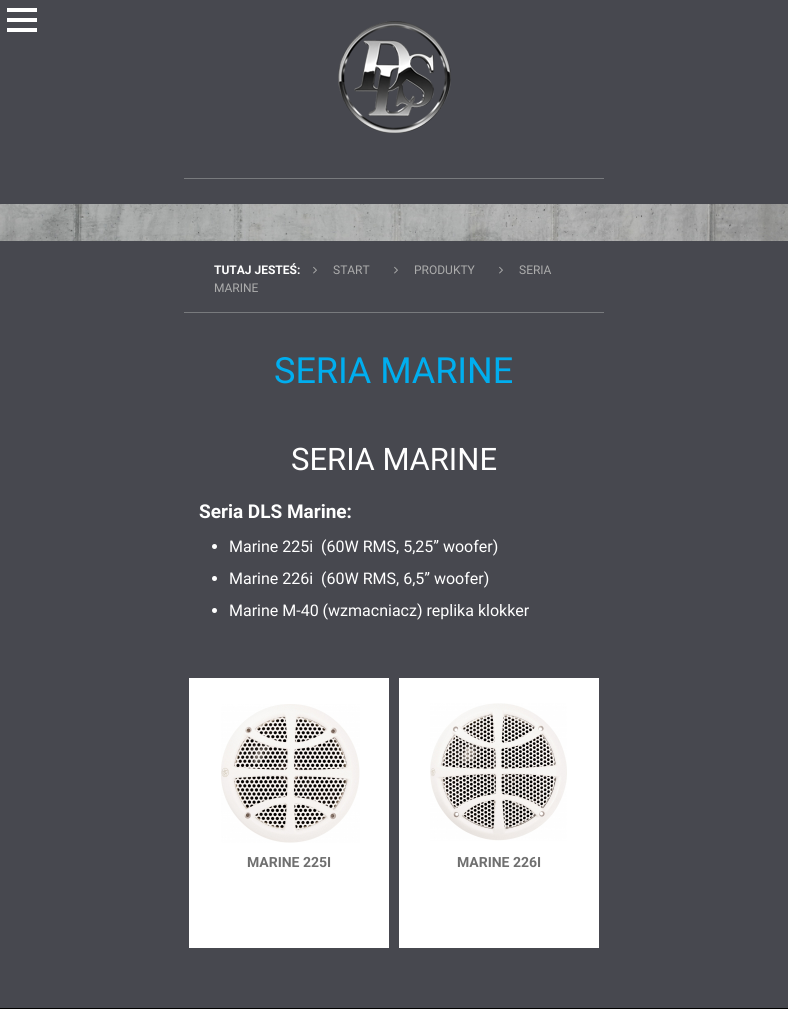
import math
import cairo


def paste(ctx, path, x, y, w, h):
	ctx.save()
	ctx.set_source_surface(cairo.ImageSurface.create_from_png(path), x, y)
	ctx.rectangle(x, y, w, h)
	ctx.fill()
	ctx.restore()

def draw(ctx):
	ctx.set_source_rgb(0.278, 0.282, 0.31)
	ctx.paint()
	ctx.set_source_rgb(1, 1, 1)
	ctx.rectangle(7, 28, 30, 4)
	ctx.rectangle(7, 18, 30, 4)
	ctx.rectangle(7, 8, 30, 4)
	ctx.fill()
	paste(ctx, 'media/1.png', 338, 21, 113, 112)
	ctx.set_source_rgb(0.471, 0.478, 0.49)
	ctx.rectangle(184, 178, 420, 1)
	ctx.fill()
	paste(ctx, 'media/2.png', 0, 204, 788, 37)
	ctx.rectangle(184, 312, 420, 1)
	ctx.fill()
	ctx.select_font_face('Roboto', cairo.FONT_SLANT_NORMAL, cairo.FONT_WEIGHT_BOLD)
	ctx.set_font_size(12)
	ctx.set_source_rgb(1, 1, 1)
	ctx.move_to(214, 274)
	ctx.show_text('TUTAJ JESTEŚ:')
	paste(ctx, 'media/3.png', 313, 266, 4, 8)
	ctx.select_font_face('Roboto')
	ctx.set_source_rgb(0.675, 0.675, 0.675)
	ctx.move_to(333, 274)
	ctx.show_text('START')
	paste(ctx, 'media/3.png', 394, 266, 4, 8)
	ctx.move_to(414, 274)
	ctx.show_text('PRODUKTY')
	paste(ctx, 'media/3.png', 499, 266, 4, 8)
	ctx.move_to(519, 274)
	ctx.show_text('SERIA')
	ctx.move_to(214, 292)
	ctx.show_text('MARINE')
	ctx.set_font_size(36)
	ctx.set_source_rgb(0, 0.682, 0.937)
	ctx.move_to(274, 383)
	ctx.show_text('SERIA MARINE')
	ctx.set_font_size(31)
	ctx.set_source_rgb(1, 1, 1)
	ctx.move_to(291, 470)
	ctx.show_text('SERIA MARINE')
	ctx.select_font_face('Roboto', cairo.FONT_SLANT_NORMAL, cairo.FONT_WEIGHT_BOLD)
	ctx.set_font_size(19)
	ctx.move_to(199, 518)
	ctx.show_text('Seria DLS Marine:')
	ctx.new_path()
	ctx.arc(214.5, 546.5, 2.5, 0, 2 * math.pi)
	ctx.fill()
	ctx.select_font_face('Roboto')
	ctx.set_font_size(16)
	ctx.move_to(229, 552)
	ctx.show_text('Marine 225i  (60W RMS, 5,25” woofer)')
	ctx.new_path()
	ctx.arc(214.5, 578.5, 2.5, 0, 2 * math.pi)
	ctx.fill()
	ctx.move_to(229, 584)
	ctx.show_text('Marine 226i  (60W RMS, 6,5” woofer)')
	ctx.new_path()
	ctx.arc(214.5, 610.5, 2.5, 0, 2 * math.pi)
	ctx.fill()
	ctx.move_to(229, 616)
	ctx.show_text('Marine M-40 (wzmacniacz) replika klokker')
	ctx.rectangle(189, 678, 200, 270)
	ctx.fill()
	paste(ctx, 'media/4.png', 221, 704, 139, 139)
	ctx.select_font_face('Roboto', cairo.FONT_SLANT_NORMAL, cairo.FONT_WEIGHT_BOLD)
	ctx.set_font_size(14)
	ctx.set_source_rgb(0.435, 0.435, 0.435)
	ctx.move_to(247, 867)
	ctx.show_text('MARINE 225I')
	ctx.set_source_rgb(1, 1, 1)
	ctx.rectangle(399, 678, 200, 270)
	ctx.fill()
	paste(ctx, 'media/5.png', 430, 703, 137, 138)
	ctx.set_source_rgb(0.435, 0.435, 0.435)
	ctx.move_to(457, 867)
	ctx.show_text('MARINE 226I')
	ctx.set_source_rgb(0, 0, 0)
	ctx.rectangle(0, 1008, 788, 1)
	ctx.fill()


surface = cairo.ImageSurface(cairo.FORMAT_RGB24, 788, 1009)
ctx = cairo.Context(surface)
options = cairo.FontOptions()
options.set_hint_metrics(cairo.HINT_METRICS_OFF)
options.set_hint_style(cairo.HINT_STYLE_NONE)
ctx.set_font_options(options)
ctx.set_miter_limit(4)
draw(ctx)
surface.write_to_png('image.png')
